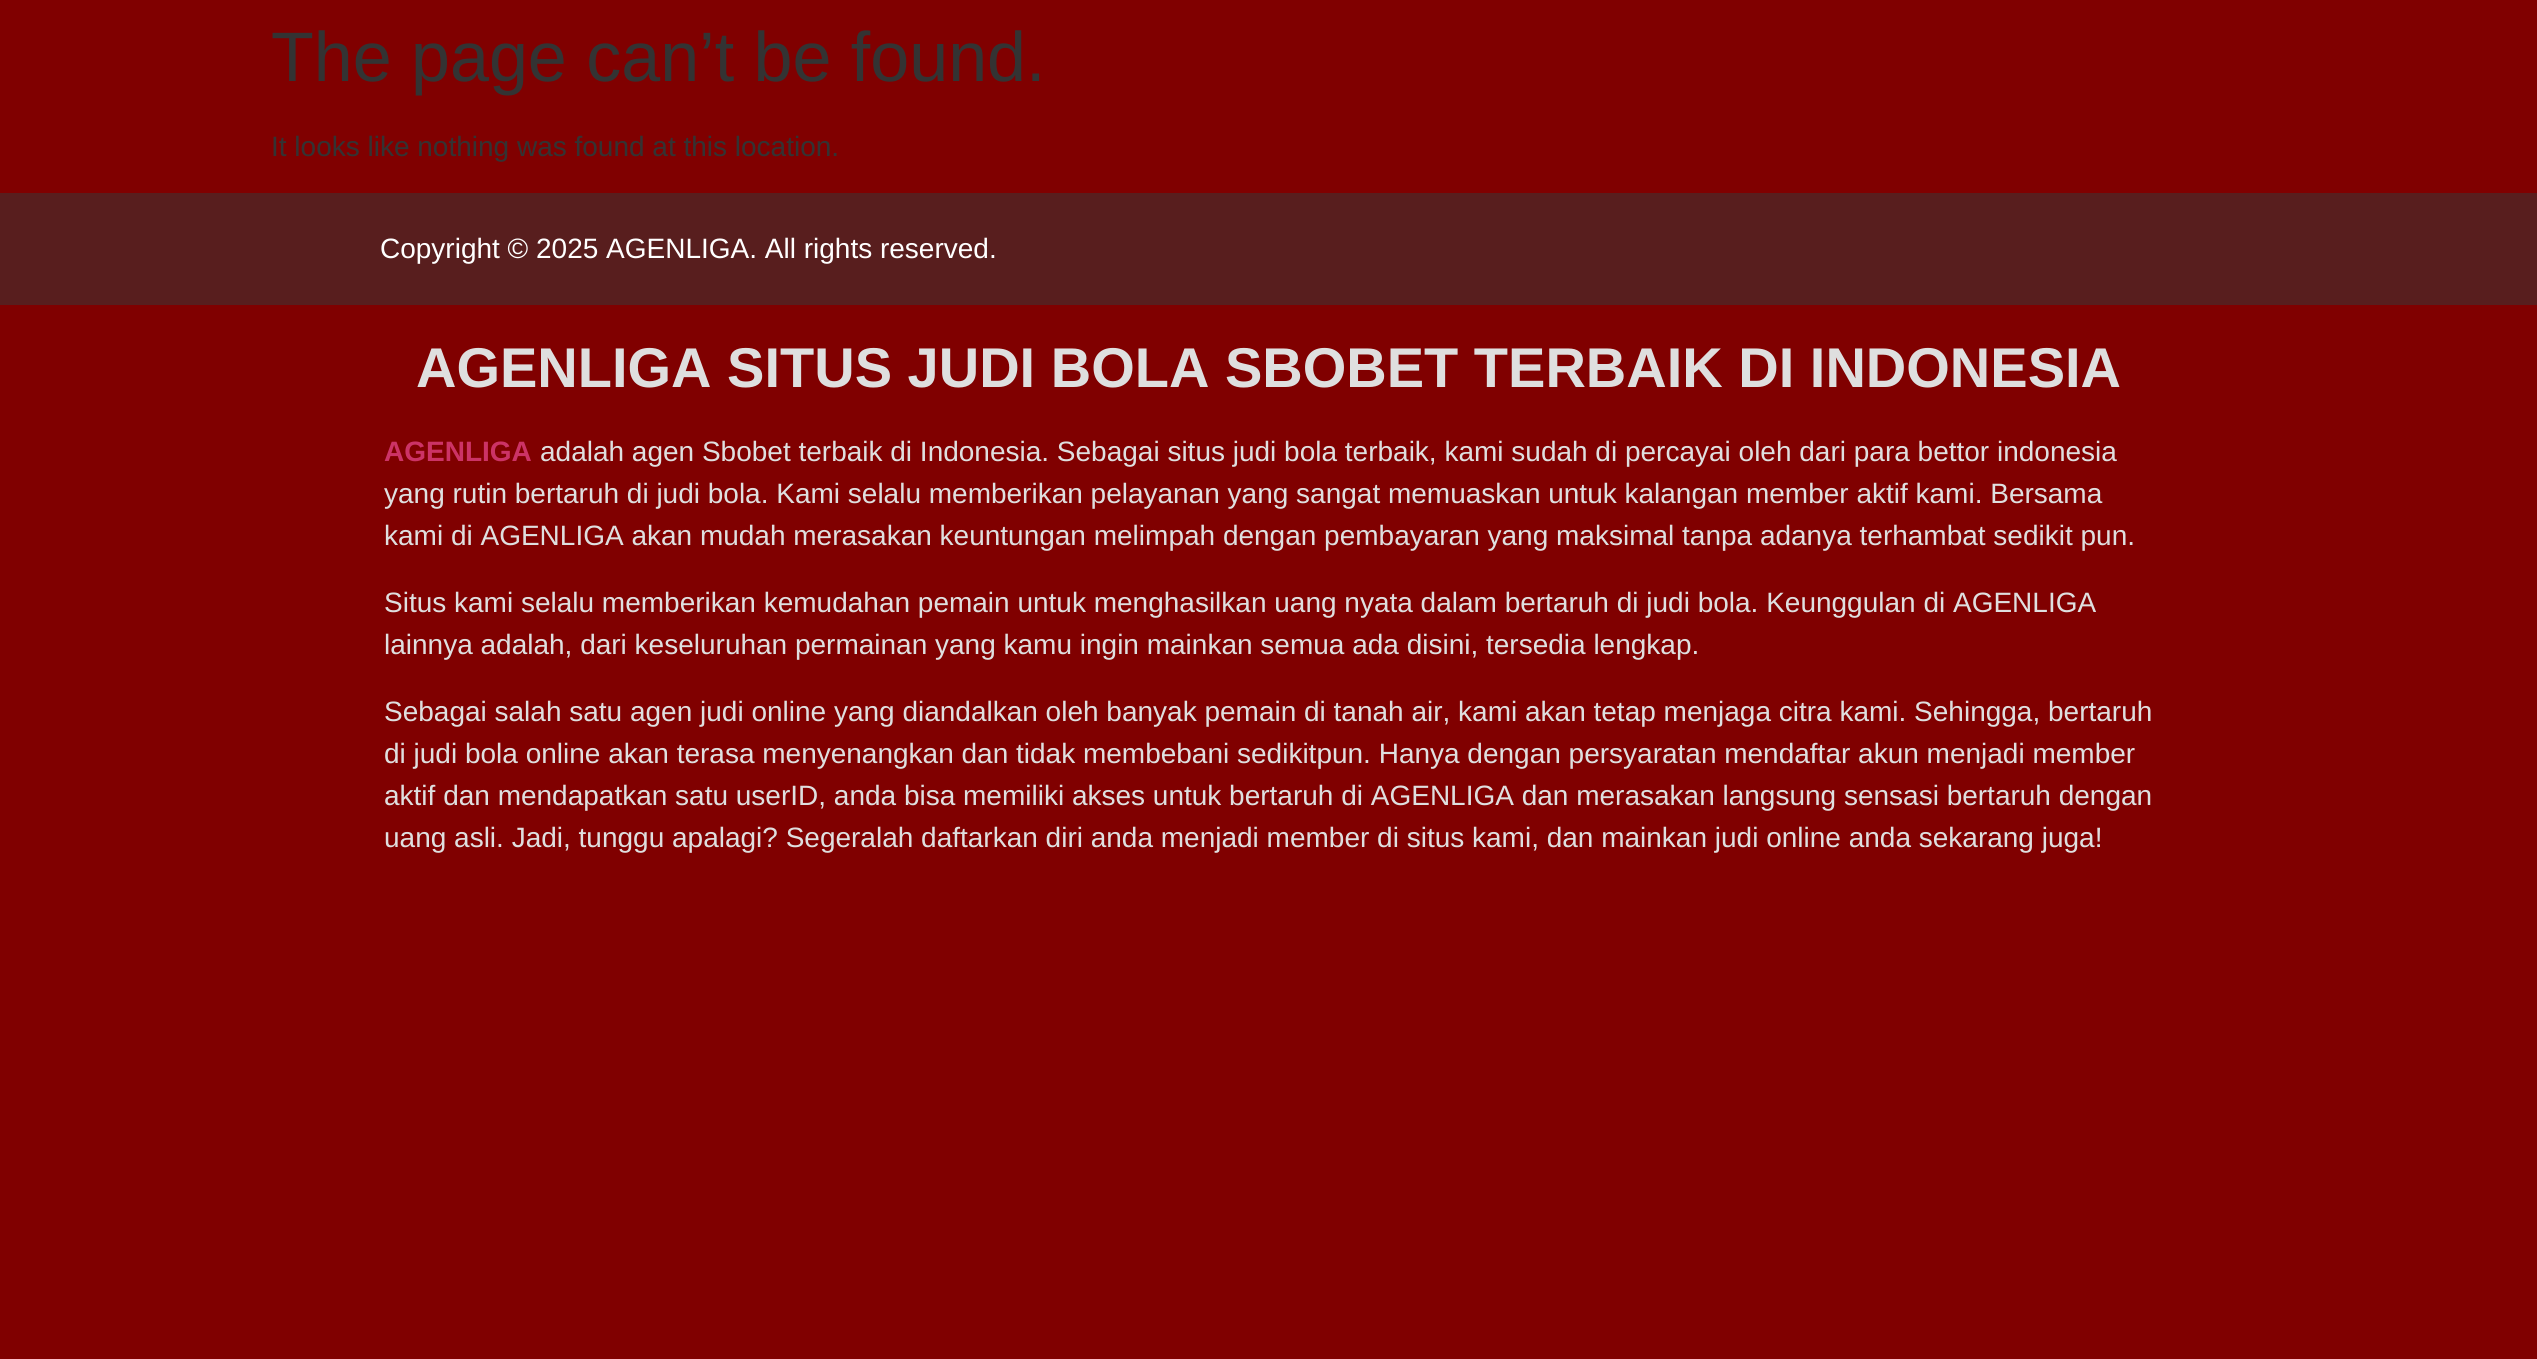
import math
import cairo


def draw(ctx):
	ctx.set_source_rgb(1, 1, 1)
	ctx.paint()
	gradient = cairo.RadialGradient(0, 0, 0, 0, 0, 1)
	gradient.set_matrix(cairo.Matrix(1 / 3589, 0, 0, 1 / 651, -1 * 2538 / 3589, -1 * 460 / 651))
	gradient.add_color_stop_rgba(1, 0.502, 0, 0, 1)
	gradient.add_color_stop_rgba(1, 0, 0, 0, 1)
	ctx.set_source(gradient)
	ctx.rectangle(0, 0, 2537, 921)
	ctx.fill()
	gradient = cairo.RadialGradient(0, 0, 0, 0, 0, 1)
	gradient.set_matrix(cairo.Matrix(1 / 3589, 0, 0, 1 / 651, -1 * 2538 / 3589, -1 * 1381 / 651))
	gradient.add_color_stop_rgba(1, 0.502, 0, 0, 1)
	gradient.add_color_stop_rgba(1, 0, 0, 0, 1)
	ctx.set_source(gradient)
	ctx.rectangle(0, 921, 2537, 438)
	ctx.fill()
	ctx.select_font_face('Liberation Sans')
	ctx.set_font_size(70)
	ctx.set_source_rgb(0.2, 0.2, 0.2)
	ctx.move_to(271, 81)
	ctx.show_text('The page can’t be found.')
	ctx.set_font_size(28)
	ctx.move_to(271, 156)
	ctx.show_text('It looks like nothing was found at this location.')
	ctx.set_source_rgb(0.345, 0.118, 0.118)
	ctx.rectangle(0, 193, 2537, 112)
	ctx.fill()
	ctx.set_source_rgb(1, 1, 1)
	ctx.move_to(380, 258)
	ctx.show_text('Copyright © 2025 AGENLIGA. All rights reserved.')
	ctx.select_font_face('Liberation Sans', cairo.FONT_SLANT_NORMAL, cairo.FONT_WEIGHT_BOLD)
	ctx.set_font_size(56)
	ctx.set_source_rgb(0.875, 0.875, 0.875)
	ctx.move_to(416, 387)
	ctx.show_text('AGENLIGA SITUS JUDI BOLA SBOBET TERBAIK DI INDONESIA')
	ctx.set_font_size(28)
	ctx.set_source_rgb(0.8, 0.2, 0.4)
	ctx.move_to(384, 461)
	ctx.show_text('AGENLIGA')
	ctx.select_font_face('Liberation Sans')
	ctx.set_source_rgb(0.875, 0.875, 0.875)
	for x, y, s in [
		(540, 461, 'adalah agen Sbobet terbaik di Indonesia. Sebagai situs judi bola terbaik, kami sudah di percayai oleh dari para bettor indonesia'),
		(384, 503, 'yang rutin bertaruh di judi bola. Kami selalu memberikan pelayanan yang sangat memuaskan untuk kalangan member aktif kami. Bersama'),
		(384, 545, 'kami di AGENLIGA akan mudah merasakan keuntungan melimpah dengan pembayaran yang maksimal tanpa adanya terhambat sedikit pun.'),
		(384, 612, 'Situs kami selalu memberikan kemudahan pemain untuk menghasilkan uang nyata dalam bertaruh di judi bola. Keunggulan di AGENLIGA'),
		(384, 654, 'lainnya adalah, dari keseluruhan permainan yang kamu ingin mainkan semua ada disini, tersedia lengkap.'),
		(384, 721, 'Sebagai salah satu agen judi online yang diandalkan oleh banyak pemain di tanah air, kami akan tetap menjaga citra kami. Sehingga, bertaruh'),
		(384, 763, 'di judi bola online akan terasa menyenangkan dan tidak membebani sedikitpun. Hanya dengan persyaratan mendaftar akun menjadi member'),
		(384, 805, 'aktif dan mendapatkan satu userID, anda bisa memiliki akses untuk bertaruh di AGENLIGA dan merasakan langsung sensasi bertaruh dengan'),
		(384, 847, 'uang asli. Jadi, tunggu apalagi? Segeralah daftarkan diri anda menjadi member di situs kami, dan mainkan judi online anda sekarang juga!'),
	]:
		ctx.move_to(x, y)
		ctx.show_text(s)


surface = cairo.ImageSurface(cairo.FORMAT_RGB24, 2537, 1359)
ctx = cairo.Context(surface)
options = cairo.FontOptions()
options.set_hint_metrics(cairo.HINT_METRICS_OFF)
options.set_hint_style(cairo.HINT_STYLE_NONE)
ctx.set_font_options(options)
ctx.set_miter_limit(4)
draw(ctx)
surface.write_to_png('image.png')
